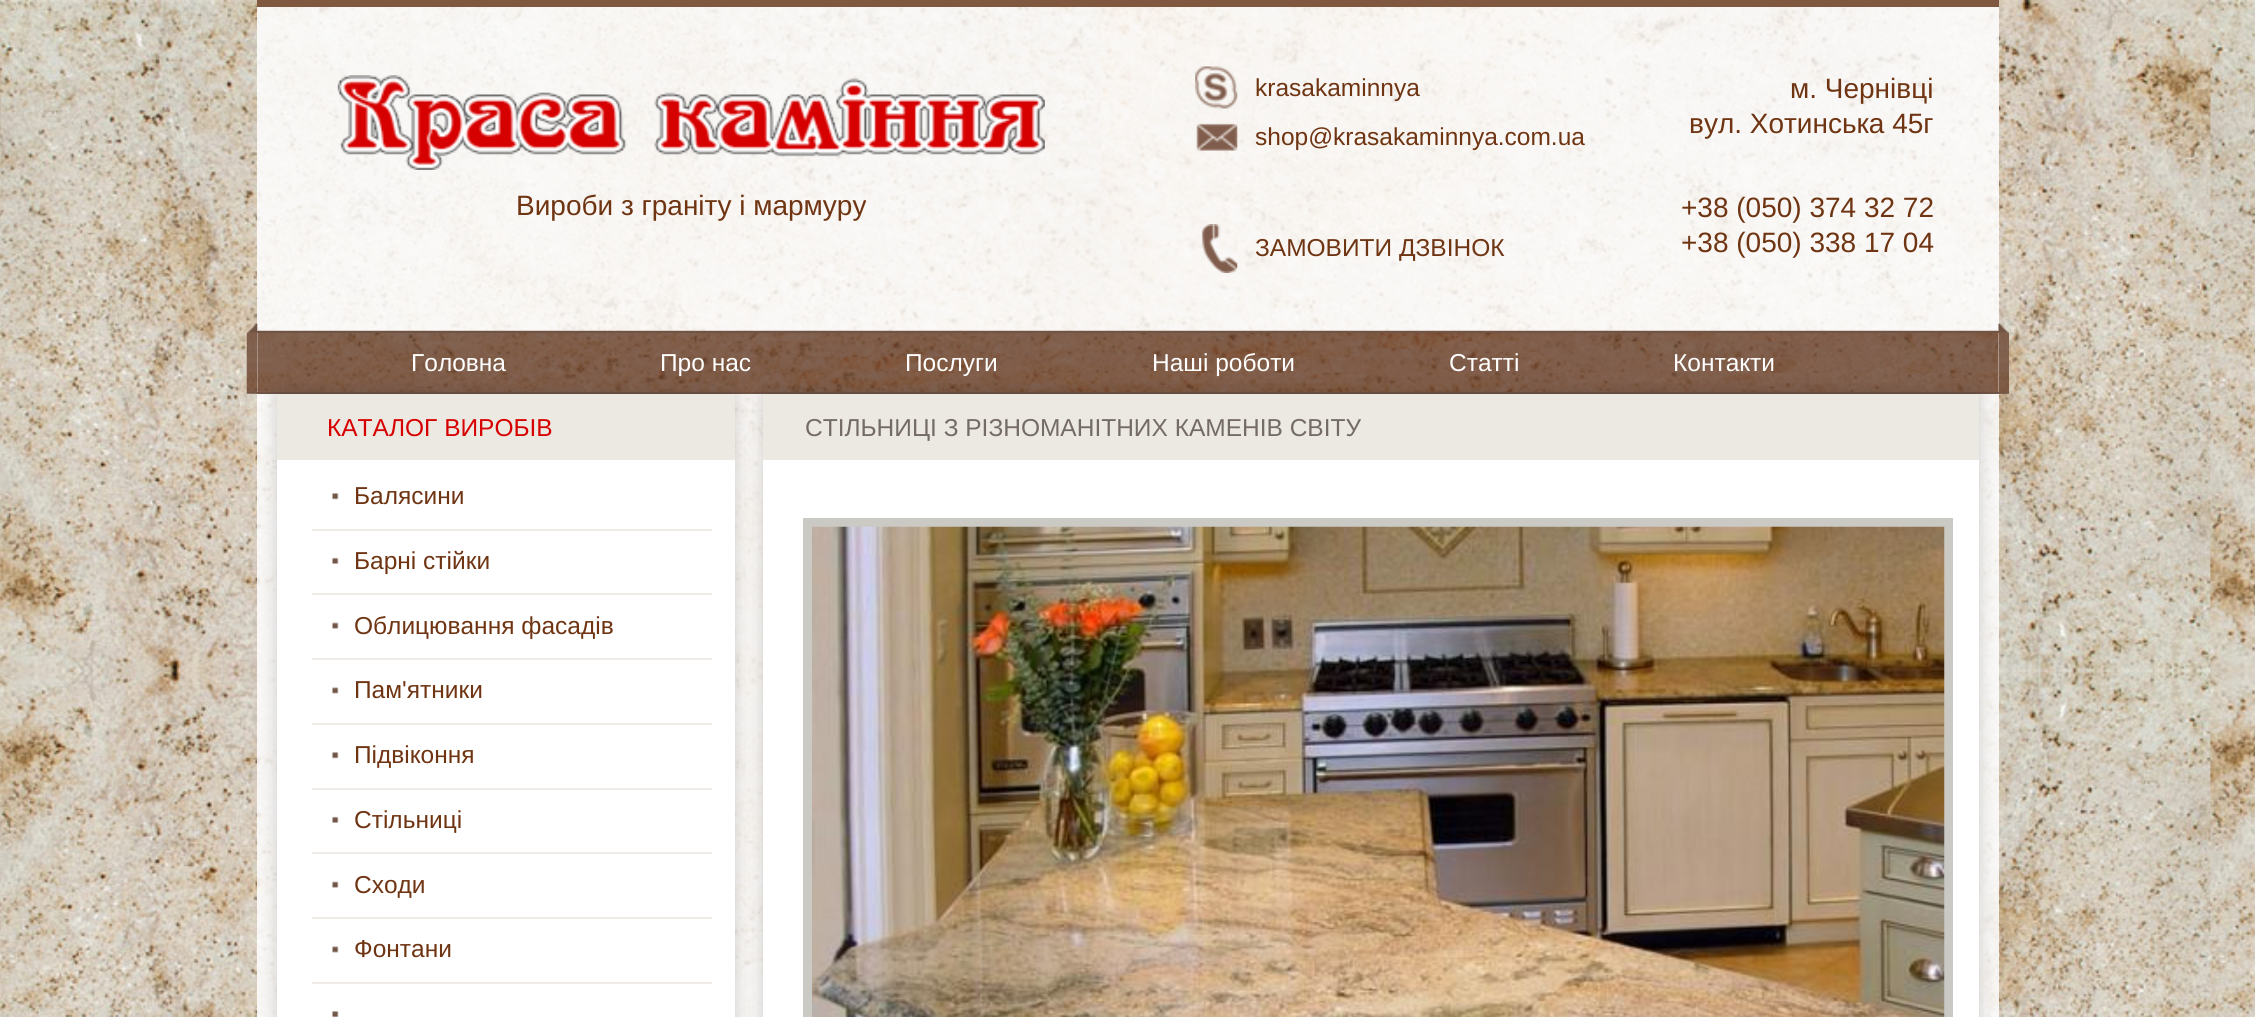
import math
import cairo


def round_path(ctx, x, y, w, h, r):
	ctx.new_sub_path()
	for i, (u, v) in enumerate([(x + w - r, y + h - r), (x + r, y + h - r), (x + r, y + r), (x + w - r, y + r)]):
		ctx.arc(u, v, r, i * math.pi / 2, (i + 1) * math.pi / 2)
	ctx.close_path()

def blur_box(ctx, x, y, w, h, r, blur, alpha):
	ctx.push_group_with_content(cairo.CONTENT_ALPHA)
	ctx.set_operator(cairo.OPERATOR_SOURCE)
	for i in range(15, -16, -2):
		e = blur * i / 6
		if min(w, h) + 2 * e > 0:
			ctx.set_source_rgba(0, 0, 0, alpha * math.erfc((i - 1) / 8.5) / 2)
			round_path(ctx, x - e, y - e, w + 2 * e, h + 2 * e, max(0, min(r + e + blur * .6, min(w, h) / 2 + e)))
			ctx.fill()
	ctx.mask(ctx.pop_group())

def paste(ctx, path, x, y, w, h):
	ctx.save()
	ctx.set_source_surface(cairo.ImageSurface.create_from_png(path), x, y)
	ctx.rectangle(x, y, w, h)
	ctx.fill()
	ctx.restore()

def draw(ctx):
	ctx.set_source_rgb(1, 1, 1)
	ctx.paint()
	paste(ctx, 'media/1.png', 0, 0, 2255, 1017)
	ctx.set_source_rgba(1, 1, 1, 0.86)
	ctx.rectangle(257, 7, 1742, 1010)
	ctx.fill()
	ctx.set_source_rgb(0.498, 0.345, 0.247)
	ctx.rectangle(257, 0, 1742, 7)
	ctx.fill()
	ctx.select_font_face('Liberation Sans')
	ctx.set_font_size(28)
	ctx.set_source_rgb(0.435, 0.204, 0.071)
	ctx.move_to(516, 215)
	ctx.show_text('Вироби з граніту і мармуру')
	paste(ctx, 'media/2.png', 1195, 66, 43, 43)
	ctx.set_font_size(24.5)
	ctx.move_to(1255, 96)
	ctx.show_text('krasakaminnya')
	paste(ctx, 'media/3.png', 1196, 123, 42, 28)
	ctx.move_to(1255, 145)
	ctx.show_text('shop@krasakaminnya.com.ua')
	paste(ctx, 'media/4.png', 1201, 224, 37, 49)
	ctx.move_to(1255, 256)
	ctx.show_text('ЗАМОВИТИ ДЗВІНОК')
	ctx.set_font_size(28)
	for x, y, s in [
		(1790, 98, 'м. Чернівці'),
		(1689, 133, 'вул. Хотинська 45г'),
		(1681, 217, '+38 (050) 374 32 72'),
		(1681, 252, '+38 (050) 338 17 04'),
	]:
		ctx.move_to(x, y)
		ctx.show_text(s)
	paste(ctx, 'media/5.png', 337, 75, 708, 95)
	paste(ctx, 'media/7.png', 257, 330, 1742, 62)
	ctx.set_source_rgb(0.439, 0.329, 0.275)
	ctx.rectangle(257, 331, 1742, 2)
	ctx.fill()
	ctx.rectangle(257, 392, 1742, 2)
	ctx.fill()
	ctx.set_source_rgb(0, 0, 0)
	blur_box(ctx, 277, 394, 458, 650, 0, 9, 0.18)
	paste(ctx, 'media/6.png', 246, 323, 12, 71)
	ctx.set_font_size(24.5)
	ctx.set_source_rgb(1, 1, 1)
	for x, y, s in [
		(411, 371, 'Головна'),
		(660, 371, 'Про нас'),
		(905, 371, 'Послуги'),
		(1152, 371, 'Наші роботи'),
		(1449, 371, 'Статті'),
		(1673, 371, 'Контакти'),
	]:
		ctx.move_to(x, y)
		ctx.show_text(s)
	ctx.set_source_rgb(0, 0, 0)
	blur_box(ctx, 763, 394, 1216, 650, 0, 9, 0.18)
	paste(ctx, 'media/8.png', 1998, 323, 11, 71)
	ctx.set_source_rgb(1, 1, 1)
	ctx.rectangle(277, 460, 458, 557)
	ctx.fill()
	ctx.set_source_rgb(0.922, 0.914, 0.89)
	ctx.rectangle(277, 394, 458, 66)
	ctx.fill()
	ctx.set_source_rgb(0.843, 0, 0)
	ctx.move_to(327, 436)
	ctx.show_text('КАТАЛОГ ВИРОБІВ')
	ctx.set_source_rgb(0.937, 0.918, 0.906)
	ctx.rectangle(312, 529, 400, 2)
	ctx.fill()
	paste(ctx, 'media/9.png', 332, 493, 7, 7)
	ctx.set_source_rgb(0.435, 0.204, 0.071)
	ctx.move_to(354, 504)
	ctx.show_text('Балясини')
	ctx.set_source_rgb(0.937, 0.918, 0.906)
	ctx.rectangle(312, 593, 400, 2)
	ctx.fill()
	paste(ctx, 'media/10.png', 332, 557, 7, 7)
	ctx.set_source_rgb(0.435, 0.204, 0.071)
	ctx.move_to(354, 569)
	ctx.show_text('Барні стійки')
	ctx.set_source_rgb(0.937, 0.918, 0.906)
	ctx.rectangle(312, 658, 400, 2)
	ctx.fill()
	paste(ctx, 'media/11.png', 332, 622, 7, 7)
	ctx.set_source_rgb(0.435, 0.204, 0.071)
	ctx.move_to(354, 634)
	ctx.show_text('Облицювання фасадів')
	ctx.set_source_rgb(0.937, 0.918, 0.906)
	ctx.rectangle(312, 723, 400, 2)
	ctx.fill()
	paste(ctx, 'media/12.png', 332, 687, 7, 7)
	ctx.set_source_rgb(0.435, 0.204, 0.071)
	ctx.move_to(354, 698)
	ctx.show_text('Пам\'ятники')
	ctx.set_source_rgb(0.937, 0.918, 0.906)
	ctx.rectangle(312, 788, 400, 2)
	ctx.fill()
	paste(ctx, 'media/9.png', 332, 752, 7, 7)
	ctx.set_source_rgb(0.435, 0.204, 0.071)
	ctx.move_to(354, 763)
	ctx.show_text('Підвіконня')
	ctx.set_source_rgb(0.937, 0.918, 0.906)
	ctx.rectangle(312, 852, 400, 2)
	ctx.fill()
	paste(ctx, 'media/10.png', 332, 816, 7, 7)
	ctx.set_source_rgb(0.435, 0.204, 0.071)
	ctx.move_to(354, 828)
	ctx.show_text('Стільниці')
	ctx.set_source_rgb(0.937, 0.918, 0.906)
	ctx.rectangle(312, 917, 400, 2)
	ctx.fill()
	paste(ctx, 'media/11.png', 332, 881, 7, 7)
	ctx.set_source_rgb(0.435, 0.204, 0.071)
	ctx.move_to(354, 893)
	ctx.show_text('Сходи')
	ctx.set_source_rgb(0.937, 0.918, 0.906)
	ctx.rectangle(312, 982, 400, 2)
	ctx.fill()
	paste(ctx, 'media/12.png', 332, 946, 7, 7)
	ctx.set_source_rgb(0.435, 0.204, 0.071)
	ctx.move_to(354, 957)
	ctx.show_text('Фонтани')
	paste(ctx, 'media/13.png', 332, 1011, 7, 6)
	ctx.set_source_rgb(1, 1, 1)
	ctx.rectangle(763, 460, 1216, 557)
	ctx.fill()
	ctx.set_source_rgb(0.922, 0.914, 0.89)
	ctx.rectangle(763, 394, 1216, 66)
	ctx.fill()
	ctx.set_source_rgb(0.455, 0.42, 0.404)
	ctx.move_to(805, 436)
	ctx.show_text('СТІЛЬНИЦІ З РІЗНОМАНІТНИХ КАМЕНІВ СВІТУ')
	ctx.rectangle(807.5, 522.5, 1141, 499)
	ctx.set_source_rgb(0.796, 0.788, 0.769)
	ctx.set_line_width(9)
	ctx.stroke()
	paste(ctx, 'media/14.png', 812, 526, 1133, 491)


surface = cairo.ImageSurface(cairo.FORMAT_RGB24, 2255, 1017)
ctx = cairo.Context(surface)
options = cairo.FontOptions()
options.set_hint_metrics(cairo.HINT_METRICS_OFF)
options.set_hint_style(cairo.HINT_STYLE_NONE)
ctx.set_font_options(options)
ctx.set_miter_limit(4)
draw(ctx)
surface.write_to_png('image.png')
